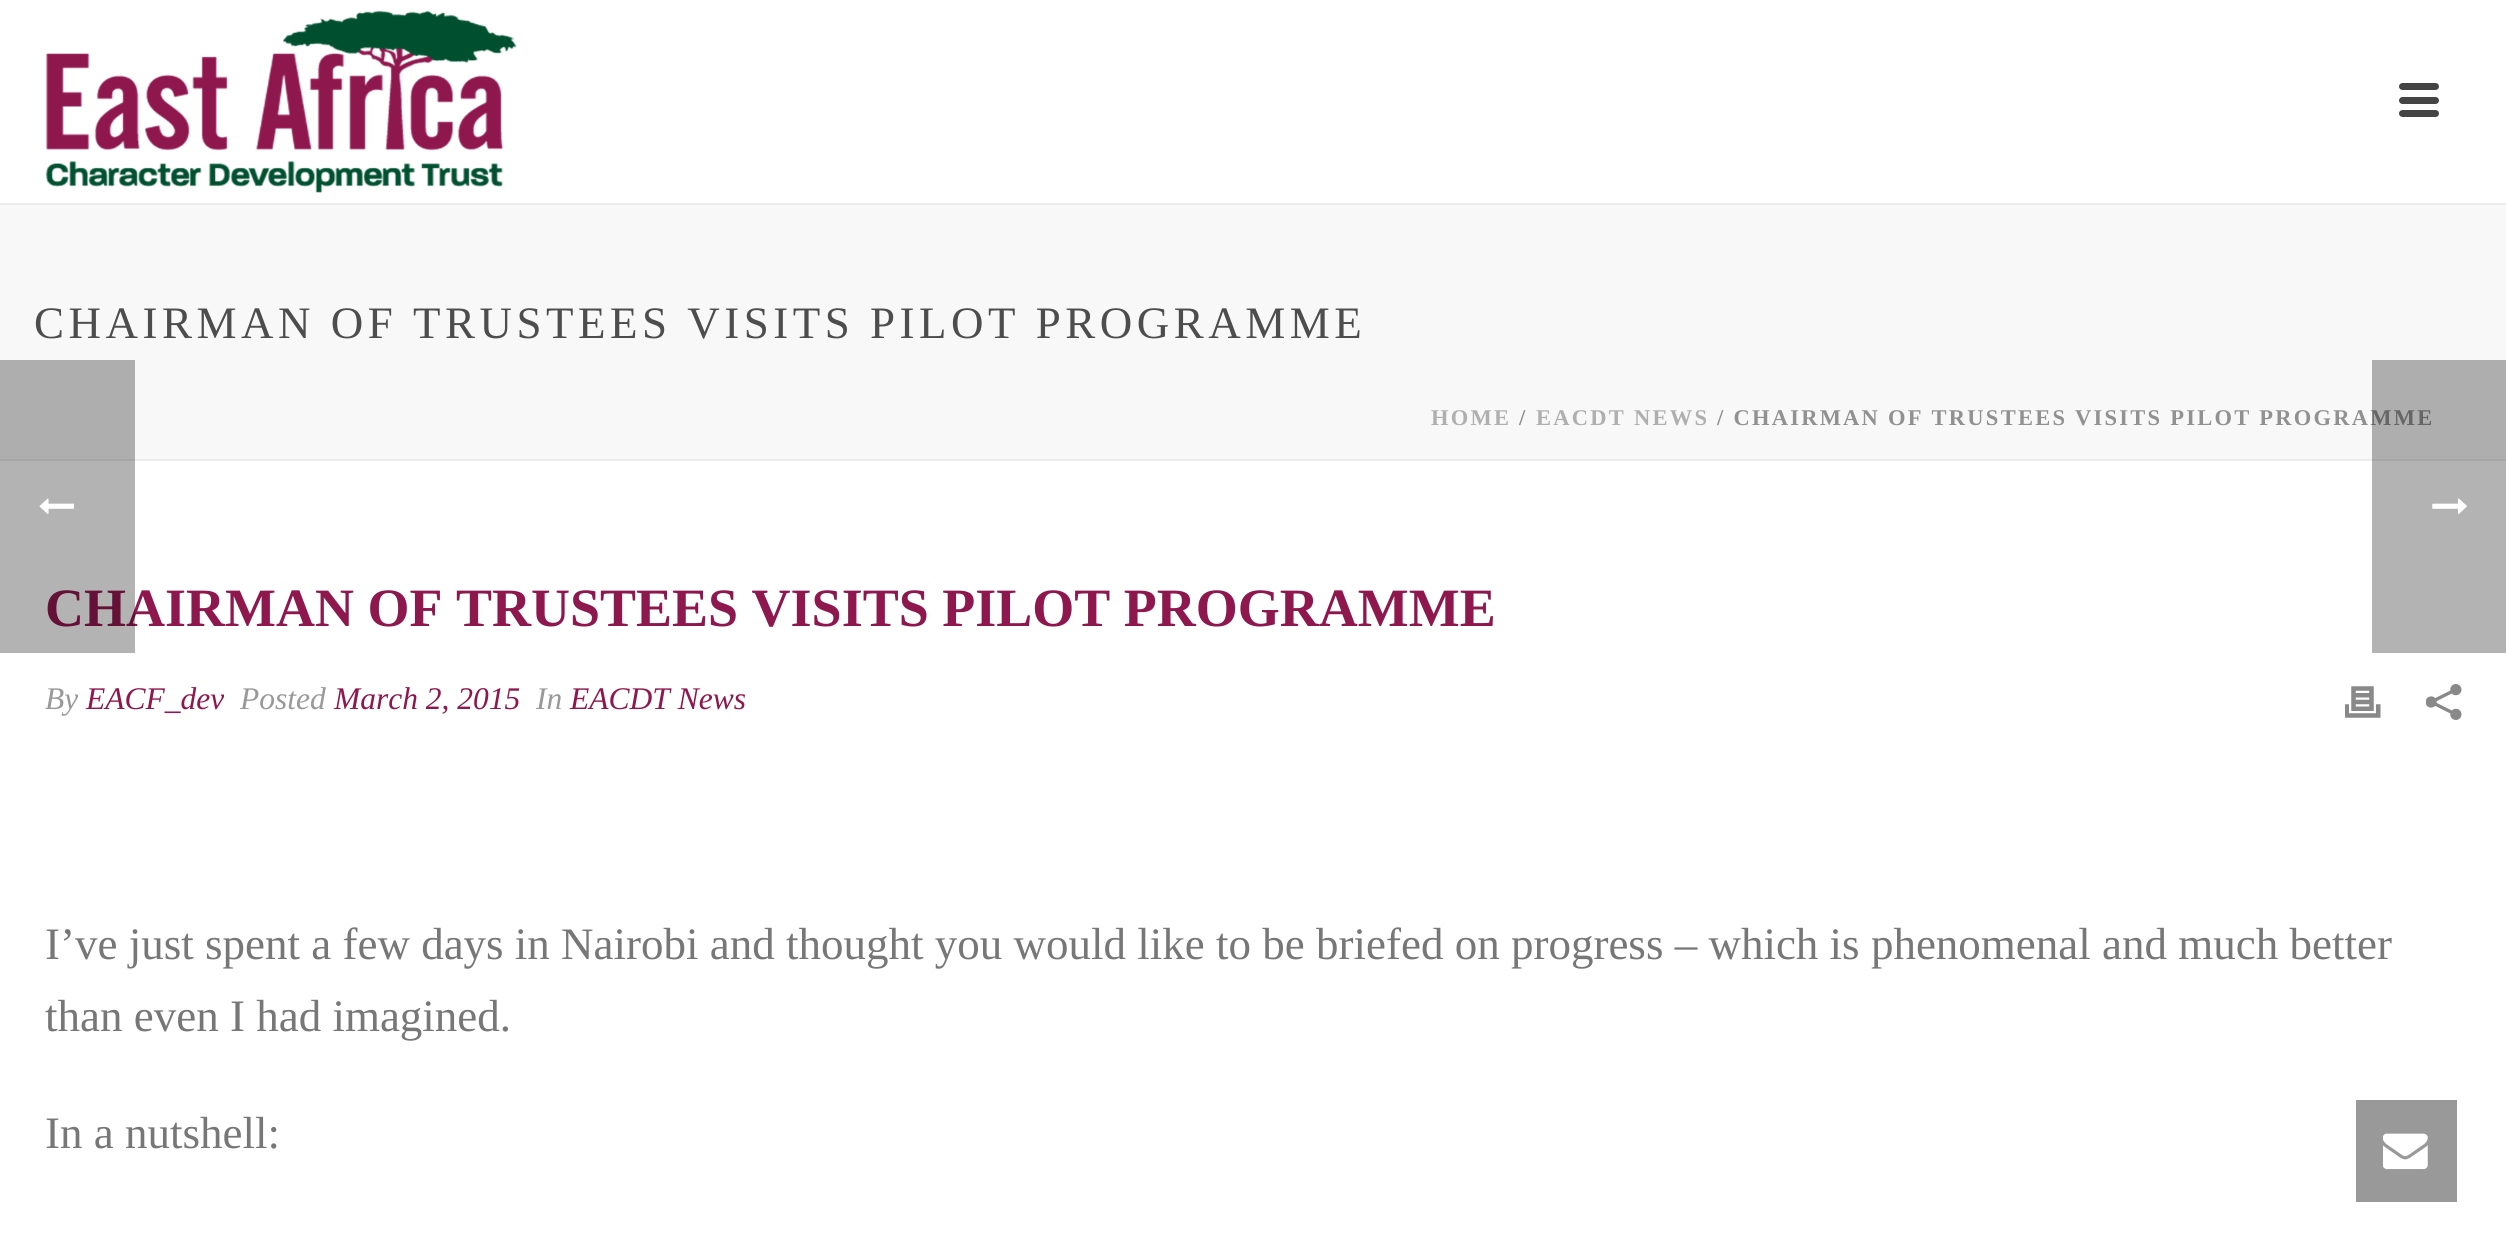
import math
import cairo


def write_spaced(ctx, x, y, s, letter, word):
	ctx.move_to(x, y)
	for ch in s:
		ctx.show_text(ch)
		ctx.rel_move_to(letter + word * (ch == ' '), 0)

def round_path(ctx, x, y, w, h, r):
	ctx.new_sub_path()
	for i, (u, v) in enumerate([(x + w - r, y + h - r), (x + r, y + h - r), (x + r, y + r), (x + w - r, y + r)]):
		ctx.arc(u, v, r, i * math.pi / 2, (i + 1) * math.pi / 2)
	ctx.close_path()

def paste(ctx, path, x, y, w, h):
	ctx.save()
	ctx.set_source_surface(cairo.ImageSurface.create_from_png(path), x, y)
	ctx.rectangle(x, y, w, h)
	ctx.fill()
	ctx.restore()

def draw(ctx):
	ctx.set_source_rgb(1, 1, 1)
	ctx.paint()
	ctx.set_source_rgb(0.969, 0.969, 0.969)
	ctx.rectangle(0, 205, 2506, 254)
	ctx.fill()
	ctx.set_source_rgb(0.929, 0.929, 0.929)
	ctx.rectangle(0, 459, 2506, 2)
	ctx.rectangle(0, 203, 2506, 2)
	ctx.fill()
	paste(ctx, 'media/1.png', 45, 10, 472, 183)
	ctx.set_source_rgb(0.267, 0.267, 0.267)
	round_path(ctx, 2399, 83, 40, 7, 3.5)
	ctx.fill()
	round_path(ctx, 2399, 97, 40, 7, 3.5)
	ctx.fill()
	round_path(ctx, 2399, 110, 40, 7, 3.5)
	ctx.fill()
	ctx.select_font_face('Liberation Serif')
	ctx.set_font_size(45)
	ctx.set_source_rgb(0.302, 0.302, 0.302)
	write_spaced(ctx, 34, 338, 'CHAIRMAN OF TRUSTEES VISITS PILOT PROGRAMME', 4.5, 0)
	ctx.select_font_face('Liberation Serif', cairo.FONT_SLANT_NORMAL, cairo.FONT_WEIGHT_BOLD)
	ctx.set_font_size(22.5)
	ctx.set_source_rgb(0.686, 0.686, 0.686)
	write_spaced(ctx, 1431, 425, 'HOME', 2.25, 0)
	ctx.set_source_rgb(0.569, 0.569, 0.569)
	write_spaced(ctx, 1519, 425, '/', 2.25, 0)
	ctx.set_source_rgb(0.686, 0.686, 0.686)
	write_spaced(ctx, 1536, 425, 'EACDT NEWS', 2.25, 0)
	ctx.set_source_rgb(0.569, 0.569, 0.569)
	write_spaced(ctx, 1717, 425, '/ CHAIRMAN OF TRUSTEES VISITS PILOT PROGRAMME', 2.25, 0)
	ctx.set_font_size(54)
	ctx.set_source_rgb(0.557, 0.09, 0.306)
	ctx.move_to(45, 626)
	ctx.show_text('CHAIRMAN OF TRUSTEES VISITS PILOT PROGRAMME')
	ctx.select_font_face('Liberation Serif', cairo.FONT_SLANT_ITALIC)
	ctx.set_font_size(31.5)
	ctx.set_source_rgb(0.6, 0.6, 0.6)
	ctx.move_to(45, 709)
	ctx.show_text('By')
	ctx.set_source_rgb(0.557, 0.09, 0.306)
	ctx.move_to(86, 709)
	ctx.show_text('EACF_dev')
	ctx.set_source_rgb(0.6, 0.6, 0.6)
	ctx.move_to(240, 709)
	ctx.show_text('Posted')
	ctx.set_source_rgb(0.557, 0.09, 0.306)
	ctx.move_to(334, 709)
	ctx.show_text('March 2, 2015')
	ctx.set_source_rgb(0.6, 0.6, 0.6)
	ctx.move_to(536, 709)
	ctx.show_text('In')
	ctx.set_source_rgb(0.557, 0.09, 0.306)
	ctx.move_to(570, 709)
	ctx.show_text('EACDT News')
	paste(ctx, 'media/2.png', 2345, 686, 36, 32)
	paste(ctx, 'media/3.png', 2426, 684, 36, 36)
	ctx.select_font_face('Liberation Serif')
	ctx.set_font_size(45)
	ctx.set_source_rgb(0.467, 0.467, 0.467)
	for x, y, s in [
		(45, 959, 'I’ve just spent a few days in Nairobi and thought you would like to be briefed on progress – which is phenomenal and much better'),
		(45, 1031, 'than even I had imagined.'),
		(45, 1148, 'In a nutshell:'),
	]:
		ctx.move_to(x, y)
		ctx.show_text(s)
	ctx.set_source_rgba(0, 0, 0, 0.3)
	ctx.rectangle(0, 360, 135, 293)
	ctx.fill()
	paste(ctx, 'media/4.png', 39, 498, 35, 16)
	ctx.rectangle(2372, 360, 134, 293)
	ctx.fill()
	paste(ctx, 'media/5.png', 2432, 498, 35, 16)
	ctx.set_source_rgb(0.6, 0.6, 0.6)
	ctx.rectangle(2356, 1100, 101, 102)
	ctx.fill()
	paste(ctx, 'media/6.png', 2383, 1133, 45, 37)


surface = cairo.ImageSurface(cairo.FORMAT_RGB24, 2506, 1235)
ctx = cairo.Context(surface)
options = cairo.FontOptions()
options.set_hint_metrics(cairo.HINT_METRICS_OFF)
options.set_hint_style(cairo.HINT_STYLE_NONE)
ctx.set_font_options(options)
ctx.set_miter_limit(4)
draw(ctx)
surface.write_to_png('image.png')
